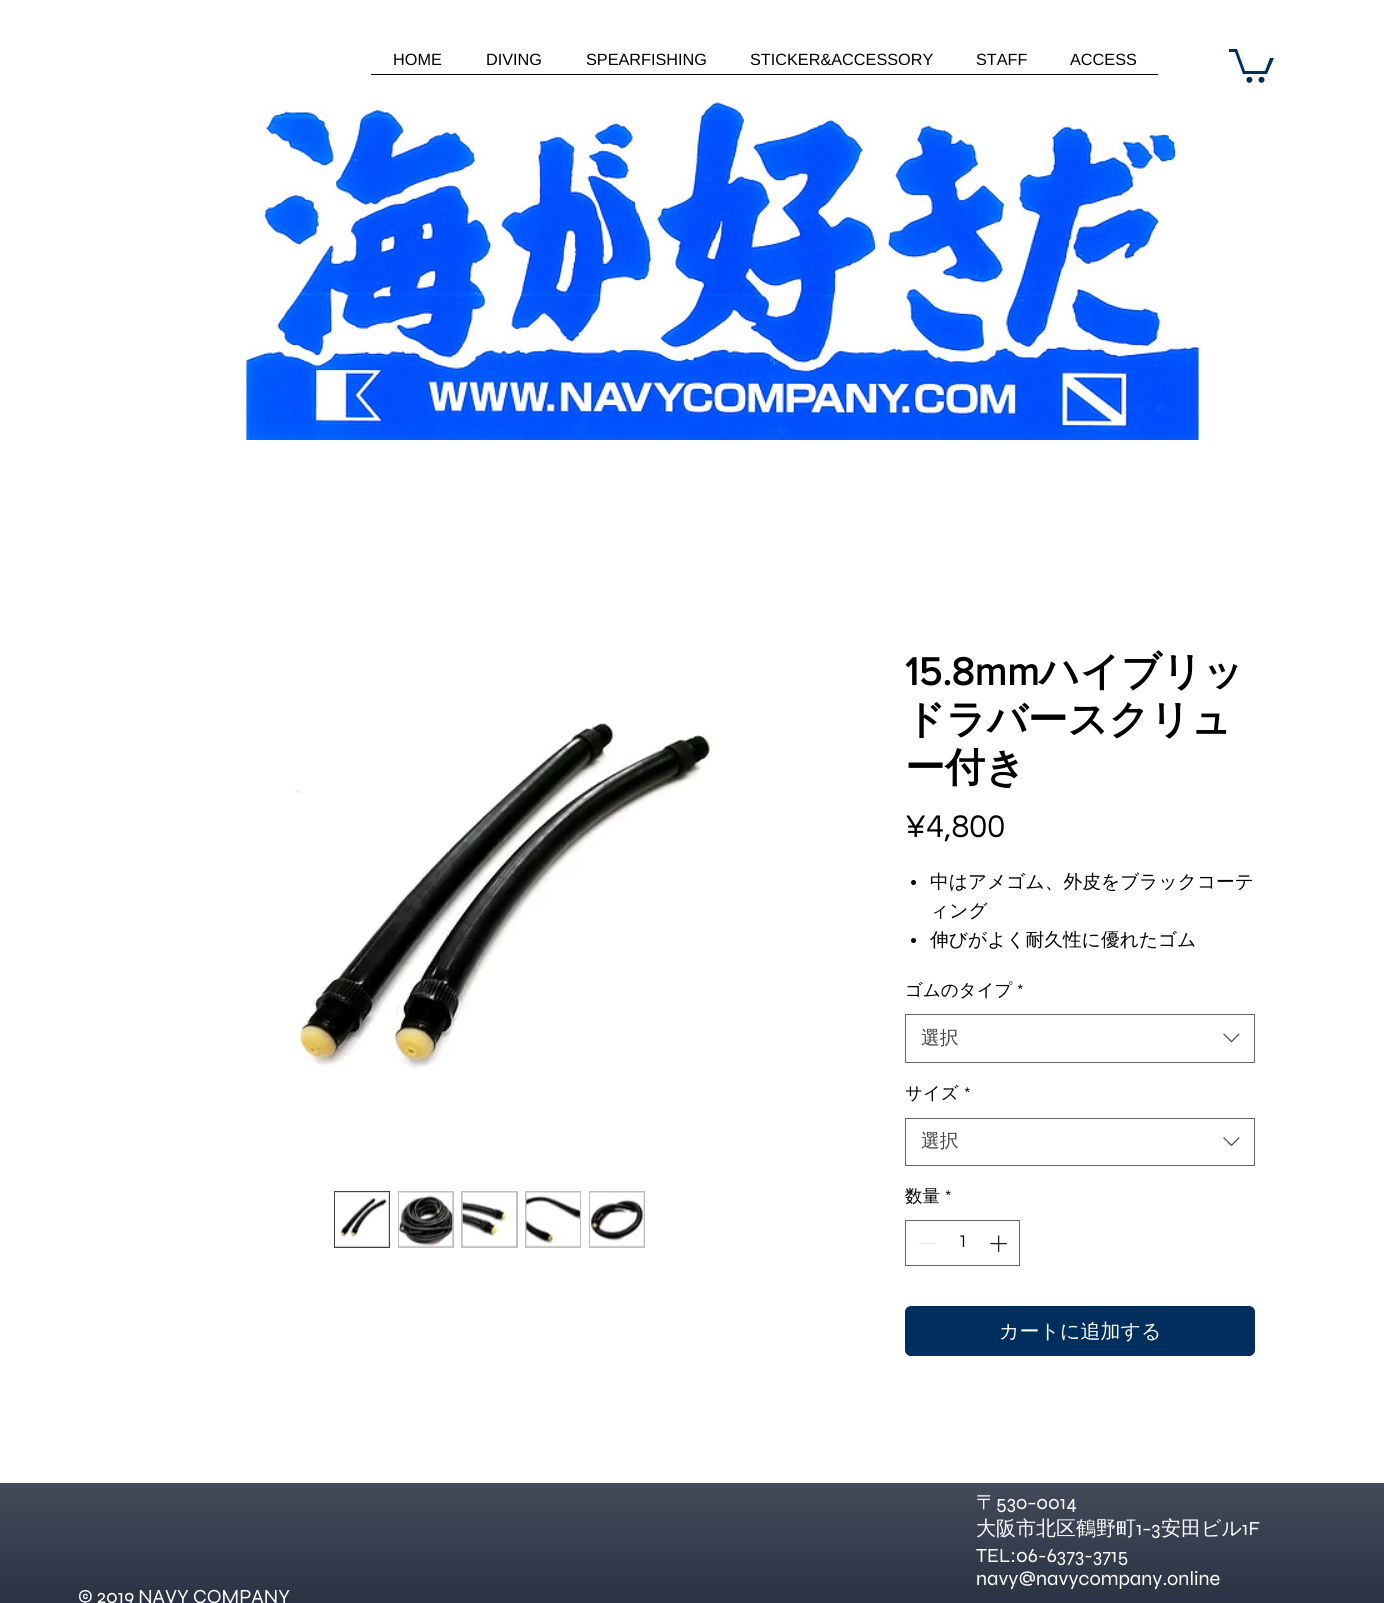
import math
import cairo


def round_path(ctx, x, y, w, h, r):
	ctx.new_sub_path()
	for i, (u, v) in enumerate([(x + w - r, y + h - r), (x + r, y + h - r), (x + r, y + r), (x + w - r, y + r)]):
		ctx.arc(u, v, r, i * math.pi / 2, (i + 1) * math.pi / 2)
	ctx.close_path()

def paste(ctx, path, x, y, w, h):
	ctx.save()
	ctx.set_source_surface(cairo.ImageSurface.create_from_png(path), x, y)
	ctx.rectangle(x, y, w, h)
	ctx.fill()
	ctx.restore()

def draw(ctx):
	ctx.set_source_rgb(1, 1, 1)
	ctx.paint()
	ctx.select_font_face('Liberation Sans')
	ctx.set_font_size(16.25)
	ctx.set_source_rgb(0, 0, 0)
	for x, y, s in [
		(393, 65, 'HOME'),
		(486, 65, 'DIVING'),
		(586, 65, 'SPEARFISHING'),
		(750, 65, 'STICKER&ACCESSORY'),
		(976, 65, 'STAFF'),
		(1070, 65, 'ACCESS'),
	]:
		ctx.move_to(x, y)
		ctx.show_text(s)
	ctx.rectangle(371, 74, 787, 1)
	ctx.fill()
	ctx.set_source_rgb(0, 0.18, 0.365)
	ctx.new_path()
	ctx.move_to(1274, 58)
	ctx.line_to(1267, 74)
	ctx.line_to(1243, 74)
	ctx.line_to(1235, 52)
	ctx.line_to(1229, 52)
	ctx.line_to(1229, 49)
	ctx.line_to(1237, 49)
	ctx.line_to(1245, 71)
	ctx.line_to(1265, 71)
	ctx.line_to(1270, 58)
	ctx.fill()
	ctx.arc(1261.5, 79.8, 3, 0, 2 * math.pi)
	ctx.fill()
	ctx.arc(1249.4, 79.8, 3, 0, 2 * math.pi)
	ctx.fill()
	paste(ctx, 'media/1.png', 246, 102, 953, 338)
	paste(ctx, 'media/2.png', 295, 723, 416, 346)
	ctx.set_source_rgb(0.749, 0.749, 0.749)
	ctx.rectangle(334.5, 1191.5, 55, 56)
	ctx.fill_preserve()
	ctx.set_source_rgb(0.251, 0.251, 0.251)
	ctx.set_line_width(1)
	ctx.stroke()
	paste(ctx, 'media/3.png', 335, 1192, 54, 55)
	ctx.set_source_rgb(0.749, 0.749, 0.749)
	ctx.rectangle(398, 1191, 56, 57)
	ctx.fill()
	paste(ctx, 'media/4.png', 398, 1192, 55, 55)
	ctx.rectangle(461, 1191, 57, 57)
	ctx.fill()
	paste(ctx, 'media/5.png', 462, 1192, 55, 55)
	ctx.rectangle(525, 1191, 56, 57)
	ctx.fill()
	paste(ctx, 'media/6.png', 526, 1192, 54, 55)
	ctx.rectangle(589, 1191, 56, 57)
	ctx.fill()
	paste(ctx, 'media/7.png', 590, 1192, 54, 55)
	ctx.select_font_face('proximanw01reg', cairo.FONT_SLANT_NORMAL, cairo.FONT_WEIGHT_BOLD)
	ctx.set_font_size(40)
	ctx.set_source_rgb(0, 0, 0)
	ctx.move_to(905, 685)
	ctx.show_text('15.8mm')
	ctx.select_font_face('WenQuanYi Zen Hei', cairo.FONT_SLANT_NORMAL, cairo.FONT_WEIGHT_BOLD)
	for x, y, s in [
		(1039, 685, 'ハイブリッ'),
		(905, 733, 'ドラバースクリュ'),
		(905, 781, 'ー付き'),
	]:
		ctx.move_to(x, y)
		ctx.show_text(s)
	ctx.select_font_face('Questrial')
	ctx.set_font_size(32.5)
	ctx.move_to(905, 837)
	ctx.show_text('¥4,800')
	ctx.new_path()
	ctx.arc(913.5, 882.5, 2.5, 0, 2 * math.pi)
	ctx.fill()
	ctx.select_font_face('WenQuanYi Zen Hei Medium')
	ctx.set_font_size(18.75)
	ctx.move_to(930, 888)
	ctx.show_text('中はアメゴム、外皮をブラックコーテ')
	ctx.move_to(930, 917)
	ctx.show_text('ィング')
	ctx.new_path()
	ctx.arc(913.5, 940.5, 2.5, 0, 2 * math.pi)
	ctx.fill()
	ctx.move_to(930, 946)
	ctx.show_text('伸びがよく耐久性に優れたゴム')
	ctx.set_font_size(17.5)
	ctx.move_to(905, 996)
	ctx.show_text('ゴムのタイプ')
	ctx.select_font_face('Questrial')
	ctx.move_to(1017, 996)
	ctx.show_text('*')
	ctx.rectangle(905.5, 1014.5, 349, 48)
	ctx.set_source_rgb(0.4, 0.4, 0.4)
	ctx.stroke()
	ctx.select_font_face('WenQuanYi Zen Hei Medium')
	ctx.set_font_size(18.75)
	ctx.set_source_rgb(0.267, 0.267, 0.267)
	ctx.move_to(921, 1044)
	ctx.show_text('選択')
	paste(ctx, 'media/8.png', 1223, 1033, 17, 10)
	ctx.set_font_size(17.5)
	ctx.set_source_rgb(0, 0, 0)
	ctx.move_to(905, 1099)
	ctx.show_text('サイズ')
	ctx.select_font_face('Questrial')
	ctx.move_to(964, 1099)
	ctx.show_text('*')
	ctx.rectangle(905.5, 1118.5, 349, 47)
	ctx.set_source_rgb(0.4, 0.4, 0.4)
	ctx.stroke()
	ctx.select_font_face('WenQuanYi Zen Hei Medium')
	ctx.set_font_size(18.75)
	ctx.set_source_rgb(0.267, 0.267, 0.267)
	ctx.move_to(921, 1147)
	ctx.show_text('選択')
	paste(ctx, 'media/9.png', 1223, 1137, 17, 10)
	ctx.set_font_size(17.5)
	ctx.set_source_rgb(0, 0, 0)
	ctx.move_to(905, 1202)
	ctx.show_text('数量')
	ctx.select_font_face('Questrial')
	ctx.move_to(945, 1202)
	ctx.show_text('*')
	ctx.rectangle(905.5, 1220.5, 114, 45)
	ctx.set_source_rgb(0.4, 0.4, 0.4)
	ctx.stroke()
	ctx.set_source_rgb(0.89, 0.89, 0.89)
	ctx.rectangle(919, 1243, 17, 1)
	ctx.fill()
	ctx.set_source_rgb(0, 0, 0)
	ctx.move_to(958, 1247)
	ctx.show_text('1')
	paste(ctx, 'media/10.png', 990, 1235, 17, 17)
	ctx.set_source_rgb(0, 0.18, 0.365)
	round_path(ctx, 905, 1306, 350, 50, 6)
	ctx.fill()
	ctx.select_font_face('WenQuanYi Zen Hei Medium')
	ctx.set_font_size(20)
	ctx.set_source_rgb(1, 1, 1)
	ctx.move_to(999, 1338)
	ctx.show_text('カートに追加する')
	ctx.set_source_rgb(0.004, 0.047, 0.129)
	ctx.rectangle(0, 1483, 1384, 120)
	ctx.fill()
	paste(ctx, 'media/11.png', 0, 1483, 1384, 120)
	ctx.set_source_rgb(1, 1, 1)
	ctx.move_to(976, 1509)
	ctx.show_text('〒')
	ctx.select_font_face('Syne')
	ctx.move_to(996, 1509)
	ctx.show_text('530−0014')
	ctx.select_font_face('WenQuanYi Zen Hei Medium')
	ctx.move_to(976, 1535)
	ctx.show_text('大阪市北区鶴野町')
	ctx.select_font_face('Syne')
	ctx.move_to(1136, 1535)
	ctx.show_text('1−3')
	ctx.select_font_face('WenQuanYi Zen Hei Medium')
	ctx.move_to(1161, 1535)
	ctx.show_text('安田ビル')
	ctx.select_font_face('Syne')
	for x, y, s in [
		(1242, 1535, '1F'),
		(976, 1562, 'TEL:06-6373-3715'),
		(976, 1585, 'navy@navycompany.online'),
		(78, 1603, '© 2019 NAVY COMPANY'),
	]:
		ctx.move_to(x, y)
		ctx.show_text(s)


surface = cairo.ImageSurface(cairo.FORMAT_RGB24, 1384, 1603)
ctx = cairo.Context(surface)
options = cairo.FontOptions()
options.set_hint_metrics(cairo.HINT_METRICS_OFF)
options.set_hint_style(cairo.HINT_STYLE_NONE)
ctx.set_font_options(options)
ctx.set_miter_limit(4)
draw(ctx)
surface.write_to_png('image.png')
